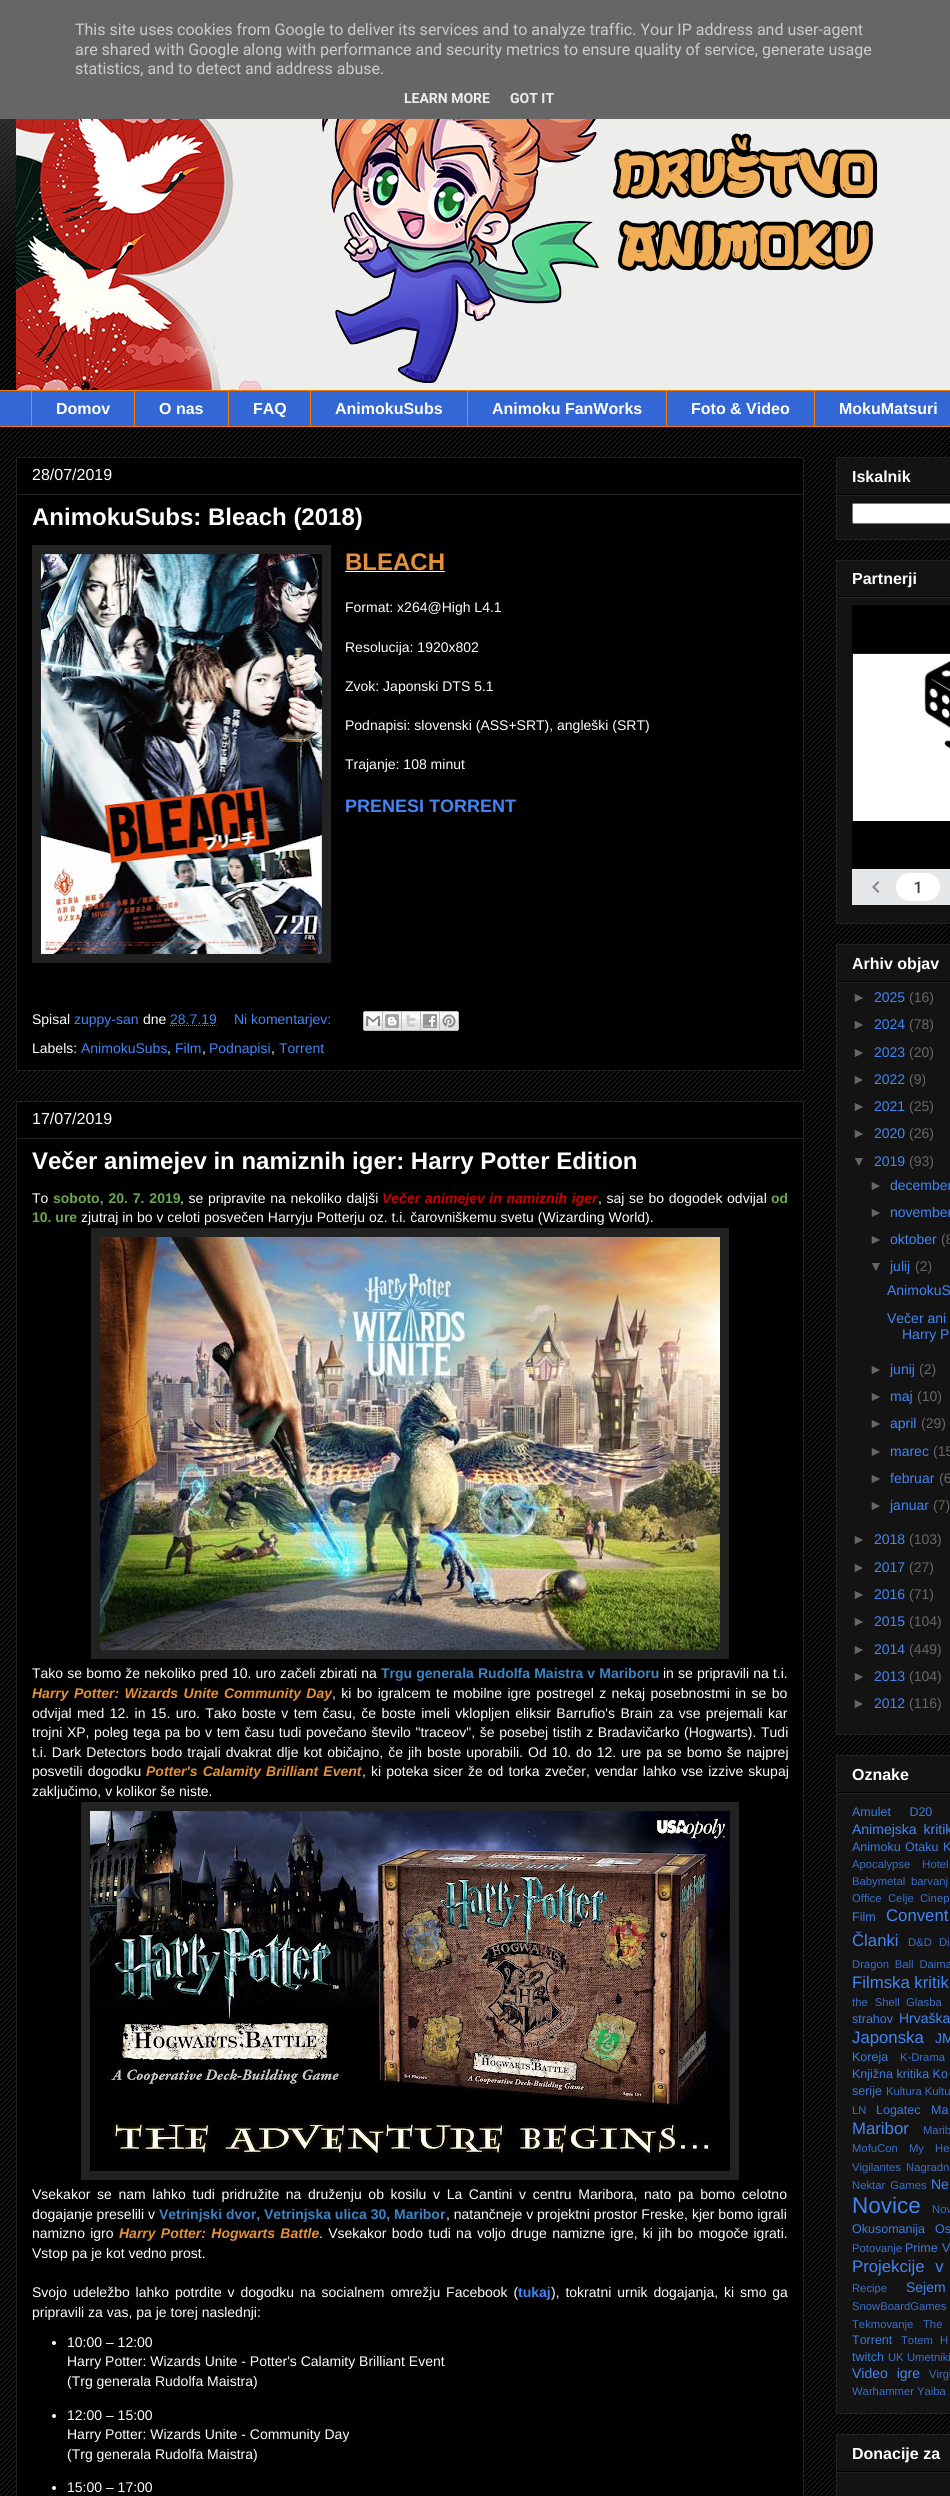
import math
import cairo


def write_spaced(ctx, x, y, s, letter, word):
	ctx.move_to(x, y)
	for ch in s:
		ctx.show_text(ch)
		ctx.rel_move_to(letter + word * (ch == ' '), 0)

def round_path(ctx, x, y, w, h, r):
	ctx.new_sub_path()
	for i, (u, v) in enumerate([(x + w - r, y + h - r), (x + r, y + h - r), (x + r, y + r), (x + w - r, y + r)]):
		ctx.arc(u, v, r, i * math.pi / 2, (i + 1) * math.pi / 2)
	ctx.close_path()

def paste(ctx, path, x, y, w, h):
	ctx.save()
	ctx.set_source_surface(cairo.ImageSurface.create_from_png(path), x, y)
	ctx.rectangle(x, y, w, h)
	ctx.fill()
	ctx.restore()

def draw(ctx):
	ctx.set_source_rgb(0, 0, 0)
	ctx.paint()
	paste(ctx, 'media/1.png', 0, 119, 950, 2377)
	ctx.set_source_rgb(0.4, 0.4, 0.4)
	ctx.rectangle(0, 0, 950, 119)
	ctx.fill()
	ctx.select_font_face('Roboto')
	ctx.set_font_size(16)
	ctx.set_source_rgb(0.8, 0.8, 0.8)
	for x, y, s in [
		(75, 35, 'This site uses cookies from Google to deliver its services and to analyze traffic. Your IP address and user-agent'),
		(75, 55, 'are shared with Google along with performance and security metrics to ensure quality of service, generate usage'),
		(75, 74, 'statistics, and to detect and address abuse.'),
	]:
		ctx.move_to(x, y)
		ctx.show_text(s)
	ctx.select_font_face('Roboto', cairo.FONT_SLANT_NORMAL, cairo.FONT_WEIGHT_BOLD)
	ctx.set_font_size(14)
	ctx.set_source_rgb(0.933, 0.933, 0.933)
	ctx.move_to(404, 103)
	ctx.show_text('LEARN MORE')
	ctx.move_to(510, 103)
	ctx.show_text('GOT IT')
	paste(ctx, 'media/2.png', 0, 119, 16, 149)
	paste(ctx, 'media/3.png', 16, 119, 934, 271)
	ctx.set_source_rgb(0.2, 0.404, 0.839)
	ctx.rectangle(0, 391, 950, 35)
	ctx.fill()
	ctx.set_source_rgb(0.961, 0.486, 0)
	ctx.rectangle(0, 390, 950, 1)
	ctx.rectangle(31, 390, 1, 37)
	ctx.fill()
	ctx.select_font_face('Liberation Sans', cairo.FONT_SLANT_NORMAL, cairo.FONT_WEIGHT_BOLD)
	ctx.set_font_size(16)
	ctx.set_source_rgb(1, 1, 1)
	ctx.move_to(56, 414)
	ctx.show_text('Domov')
	ctx.set_source_rgb(0.961, 0.486, 0)
	ctx.rectangle(134, 390, 1, 37)
	ctx.fill()
	ctx.set_source_rgb(1, 1, 1)
	ctx.move_to(159, 414)
	ctx.show_text('O nas')
	ctx.set_source_rgb(0.961, 0.486, 0)
	ctx.rectangle(228, 390, 1, 37)
	ctx.fill()
	ctx.set_source_rgb(1, 1, 1)
	ctx.move_to(253, 414)
	ctx.show_text('FAQ')
	ctx.set_source_rgb(0.961, 0.486, 0)
	ctx.rectangle(310, 390, 1, 37)
	ctx.fill()
	ctx.set_source_rgb(1, 1, 1)
	ctx.move_to(335, 414)
	ctx.show_text('AnimokuSubs')
	ctx.set_source_rgb(0.961, 0.486, 0)
	ctx.rectangle(467, 390, 1, 37)
	ctx.fill()
	ctx.set_source_rgb(1, 1, 1)
	ctx.move_to(492, 414)
	ctx.show_text('Animoku FanWorks')
	ctx.set_source_rgb(0.961, 0.486, 0)
	ctx.rectangle(666, 390, 1, 37)
	ctx.fill()
	ctx.set_source_rgb(1, 1, 1)
	ctx.move_to(691, 414)
	ctx.show_text('Foto & Video')
	ctx.set_source_rgb(0.961, 0.486, 0)
	ctx.rectangle(814, 390, 1, 37)
	ctx.fill()
	ctx.set_source_rgb(1, 1, 1)
	ctx.move_to(839, 414)
	ctx.show_text('MokuMatsuri')
	ctx.set_source_rgb(0.961, 0.486, 0)
	ctx.rectangle(0, 426, 950, 1)
	ctx.fill()
	ctx.set_source_rgb(0, 0, 0)
	ctx.rectangle(16.5, 457.5, 787, 613)
	ctx.fill_preserve()
	ctx.set_source_rgb(0.133, 0.133, 0.133)
	ctx.set_line_width(1)
	ctx.stroke()
	ctx.select_font_face('Liberation Sans')
	ctx.set_source_rgb(1, 1, 1)
	ctx.move_to(32, 480)
	ctx.show_text('28/07/2019')
	ctx.set_source_rgb(0.133, 0.133, 0.133)
	ctx.rectangle(17, 494, 786, 1)
	ctx.fill()
	ctx.select_font_face('Liberation Sans', cairo.FONT_SLANT_NORMAL, cairo.FONT_WEIGHT_BOLD)
	ctx.set_font_size(24)
	ctx.set_source_rgb(1, 1, 1)
	ctx.move_to(32, 525)
	ctx.show_text('AnimokuSubs: Bleach (2018)')
	ctx.set_source_rgb(0.133, 0.133, 0.133)
	ctx.rectangle(32, 545, 299, 418)
	ctx.fill()
	paste(ctx, 'media/4.png', 41, 554, 281, 400)
	ctx.set_source_rgb(0.902, 0.569, 0.22)
	ctx.move_to(345, 570)
	ctx.show_text('BLEACH')
	ctx.set_source_rgb(1, 1, 1)
	ctx.rectangle(345, 571, 100, 1)
	ctx.fill()
	ctx.select_font_face('Liberation Sans')
	ctx.set_font_size(14)
	for x, y, s in [
		(345, 612, 'Format: x264@High L4.1'),
		(345, 652, 'Resolucija: 1920x802'),
		(345, 691, 'Zvok: Japonski DTS 5.1'),
		(345, 730, 'Podnapisi: slovenski (ASS+SRT), angleški (SRT)'),
		(345, 769, 'Trajanje: 108 minut'),
	]:
		ctx.move_to(x, y)
		ctx.show_text(s)
	ctx.select_font_face('Liberation Sans', cairo.FONT_SLANT_NORMAL, cairo.FONT_WEIGHT_BOLD)
	ctx.set_font_size(18)
	ctx.set_source_rgb(0.259, 0.522, 0.957)
	ctx.move_to(345, 812)
	ctx.show_text('PRENESI TORRENT')
	ctx.select_font_face('Liberation Sans')
	ctx.set_font_size(14)
	ctx.set_source_rgb(1, 1, 1)
	ctx.move_to(32, 1024)
	ctx.show_text('Spisal')
	ctx.set_source_rgb(0.259, 0.522, 0.957)
	ctx.move_to(74, 1024)
	ctx.show_text('zuppy-san')
	ctx.set_source_rgb(1, 1, 1)
	ctx.move_to(143, 1024)
	ctx.show_text('dne')
	ctx.set_source_rgb(0.259, 0.522, 0.957)
	ctx.move_to(170, 1024)
	ctx.show_text('28.7.19')
	ctx.new_path()
	ctx.move_to(170, 1025.5)
	ctx.line_to(216.5, 1025.5)
	ctx.set_dash([1, 1])
	ctx.stroke()
	ctx.move_to(234, 1024)
	ctx.show_text('Ni komentarjev:')
	paste(ctx, 'media/5.png', 363, 1011, 20, 20)
	paste(ctx, 'media/6.png', 383, 1011, 19, 20)
	paste(ctx, 'media/7.png', 402, 1011, 19, 20)
	paste(ctx, 'media/8.png', 421, 1011, 19, 20)
	paste(ctx, 'media/9.png', 440, 1011, 19, 20)
	ctx.set_source_rgb(1, 1, 1)
	ctx.move_to(32, 1053)
	ctx.show_text('Labels:')
	ctx.set_source_rgb(0.259, 0.522, 0.957)
	ctx.move_to(81, 1053)
	ctx.show_text('AnimokuSubs')
	ctx.set_source_rgb(1, 1, 1)
	ctx.move_to(167, 1053)
	ctx.show_text(',')
	ctx.set_source_rgb(0.259, 0.522, 0.957)
	ctx.move_to(175, 1053)
	ctx.show_text('Film')
	ctx.set_source_rgb(1, 1, 1)
	ctx.move_to(202, 1053)
	ctx.show_text(',')
	ctx.set_source_rgb(0.259, 0.522, 0.957)
	ctx.move_to(209, 1053)
	ctx.show_text('Podnapisi')
	ctx.set_source_rgb(1, 1, 1)
	ctx.move_to(271, 1053)
	ctx.show_text(',')
	ctx.set_source_rgb(0.259, 0.522, 0.957)
	ctx.move_to(279, 1053)
	ctx.show_text('Torrent')
	ctx.set_source_rgb(0, 0, 0)
	ctx.rectangle(16.5, 1101.5, 787, 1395)
	ctx.fill_preserve()
	ctx.set_source_rgb(0.133, 0.133, 0.133)
	ctx.set_dash([])
	ctx.stroke()
	ctx.set_font_size(16)
	ctx.set_source_rgb(1, 1, 1)
	ctx.move_to(32, 1124)
	ctx.show_text('17/07/2019')
	ctx.set_source_rgb(0.133, 0.133, 0.133)
	ctx.rectangle(17, 1138, 786, 1)
	ctx.fill()
	ctx.select_font_face('Liberation Sans', cairo.FONT_SLANT_NORMAL, cairo.FONT_WEIGHT_BOLD)
	ctx.set_font_size(24)
	ctx.set_source_rgb(1, 1, 1)
	ctx.move_to(32, 1169)
	ctx.show_text('Večer animejev in namiznih iger: Harry Potter Edition')
	ctx.select_font_face('Liberation Sans')
	ctx.set_font_size(14)
	ctx.move_to(32, 1203)
	ctx.show_text('To')
	ctx.select_font_face('Liberation Sans', cairo.FONT_SLANT_NORMAL, cairo.FONT_WEIGHT_BOLD)
	ctx.set_source_rgb(0.416, 0.659, 0.31)
	write_spaced(ctx, 53, 1203, 'soboto, 20. 7. 2019', 0, 1)
	ctx.select_font_face('Liberation Sans')
	ctx.set_source_rgb(1, 1, 1)
	write_spaced(ctx, 180, 1203, ', se pripravite na nekoliko daljši', 0, 0.75)
	ctx.select_font_face('Liberation Sans', cairo.FONT_SLANT_ITALIC, cairo.FONT_WEIGHT_BOLD)
	ctx.set_source_rgb(0.8, 0, 0)
	write_spaced(ctx, 382, 1203, 'Večer animejev in namiznih iger', 0, 0.75)
	ctx.select_font_face('Liberation Sans')
	ctx.set_source_rgb(1, 1, 1)
	write_spaced(ctx, 598, 1203, ', saj se bo dogodek odvijal', 0, 0.75)
	ctx.select_font_face('Liberation Sans', cairo.FONT_SLANT_NORMAL, cairo.FONT_WEIGHT_BOLD)
	ctx.set_source_rgb(0.416, 0.659, 0.31)
	ctx.move_to(771, 1203)
	ctx.show_text('od')
	ctx.move_to(32, 1222)
	ctx.show_text('10. ure')
	ctx.select_font_face('Liberation Sans')
	ctx.set_source_rgb(1, 1, 1)
	ctx.move_to(81, 1222)
	ctx.show_text('zjutraj in bo v celoti posvečen Harryju Potterju oz. t.i. čarovniškemu svetu (Wizarding World).')
	ctx.set_source_rgb(0.133, 0.133, 0.133)
	ctx.rectangle(91, 1228, 638, 431)
	ctx.fill()
	paste(ctx, 'media/10.png', 100, 1237, 620, 413)
	ctx.set_source_rgb(1, 1, 1)
	write_spaced(ctx, 32, 1678, 'Tako se bomo že nekoliko pred 10. uro začeli zbirati na', 0, 0.25)
	ctx.select_font_face('Liberation Sans', cairo.FONT_SLANT_NORMAL, cairo.FONT_WEIGHT_BOLD)
	ctx.set_source_rgb(0.239, 0.522, 0.776)
	write_spaced(ctx, 381, 1678, 'Trgu generala Rudolfa Maistra v Mariboru', 0, 0.25)
	ctx.select_font_face('Liberation Sans')
	ctx.set_source_rgb(1, 1, 1)
	write_spaced(ctx, 663, 1678, 'in se pripravili na t.i.', 0, 0.25)
	ctx.select_font_face('Liberation Sans', cairo.FONT_SLANT_ITALIC, cairo.FONT_WEIGHT_BOLD)
	ctx.set_source_rgb(0.902, 0.569, 0.22)
	write_spaced(ctx, 32, 1698, 'Harry Potter: Wizards Unite Community Day', 0, 1.5)
	ctx.select_font_face('Liberation Sans')
	ctx.set_source_rgb(1, 1, 1)
	write_spaced(ctx, 332, 1698, ', ki bo igralcem te mobilne igre postregel z nekaj posebnostmi in se bo', 0, 1.5)
	write_spaced(ctx, 32, 1718, 'odvijal med 12. in 15. uro. Tako boste v tem času, če boste imeli vklopljen eliksir Barrufio\'s Brain za vse prejemali kar', 0, 1.5)
	write_spaced(ctx, 32, 1737, 'trojni XP, poleg tega pa bo v tem času tudi povečano število "traceov", še posebej tistih z Bradavičarko (Hogwarts). Tudi', 0, 0.7)
	write_spaced(ctx, 32, 1757, 't.i. Dark Detectors bodo trajali dvakrat dlje kot običajno, če jih boste uporabili. Od 10. do 12. ure pa se bomo še najprej', 0, 1.1)
	write_spaced(ctx, 32, 1776, 'posvetili dogodku', 0, 1.2)
	ctx.select_font_face('Liberation Sans', cairo.FONT_SLANT_ITALIC, cairo.FONT_WEIGHT_BOLD)
	ctx.set_source_rgb(0.902, 0.569, 0.22)
	write_spaced(ctx, 146, 1776, 'Potter\'s Calamity Brilliant Event', 0, 1.2)
	ctx.select_font_face('Liberation Sans')
	ctx.set_source_rgb(1, 1, 1)
	write_spaced(ctx, 362, 1776, ', ki poteka sicer že od torka zvečer, vendar lahko vse izzive skupaj', 0, 1.2)
	ctx.move_to(32, 1796)
	ctx.show_text('zaključimo, v kolikor še niste.')
	ctx.set_source_rgb(0.133, 0.133, 0.133)
	ctx.rectangle(81, 1802, 658, 378)
	ctx.fill()
	paste(ctx, 'media/11.png', 90, 1811, 640, 360)
	ctx.set_source_rgb(1, 1, 1)
	write_spaced(ctx, 32, 2199, 'Vsekakor se nam lahko tudi pridružite na druženju ob kosilu v La Cantini v centru Maribora, nato pa bomo celotno', 0, 2.75)
	ctx.move_to(32, 2219)
	ctx.show_text('dogajanje preselili v')
	ctx.select_font_face('Liberation Sans', cairo.FONT_SLANT_NORMAL, cairo.FONT_WEIGHT_BOLD)
	ctx.set_source_rgb(0.239, 0.522, 0.776)
	ctx.move_to(159, 2219)
	ctx.show_text('Vetrinjski dvor, Vetrinjska ulica 30, Maribor')
	ctx.select_font_face('Liberation Sans')
	ctx.set_source_rgb(1, 1, 1)
	ctx.move_to(446, 2219)
	ctx.show_text(', natančneje v projektni prostor Freske, kjer bomo igrali')
	write_spaced(ctx, 32, 2238, 'namizno igro', 0, 1.4)
	ctx.select_font_face('Liberation Sans', cairo.FONT_SLANT_ITALIC, cairo.FONT_WEIGHT_BOLD)
	ctx.set_source_rgb(0.902, 0.569, 0.22)
	write_spaced(ctx, 119, 2238, 'Harry Potter: Hogwarts Battle', 0, 1.4)
	ctx.select_font_face('Liberation Sans')
	ctx.set_source_rgb(1, 1, 1)
	write_spaced(ctx, 319, 2238, '. Vsekakor bodo tudi na voljo druge namizne igre, ki jih bo mogoče igrati.', 0, 1.4)
	ctx.move_to(32, 2258)
	ctx.show_text('Vstop pa je kot vedno prost.')
	write_spaced(ctx, 32, 2297, 'Svojo udeležbo lahko potrdite v dogodku na socialnem omrežju Facebook (', 0, 2)
	ctx.select_font_face('Liberation Sans', cairo.FONT_SLANT_NORMAL, cairo.FONT_WEIGHT_BOLD)
	ctx.set_source_rgb(0.259, 0.522, 0.957)
	ctx.move_to(518, 2297)
	ctx.show_text('tukaj')
	ctx.select_font_face('Liberation Sans')
	ctx.set_source_rgb(1, 1, 1)
	write_spaced(ctx, 551, 2297, '), tokratni urnik dogajanja, ki smo ga', 0, 2)
	ctx.move_to(32, 2317)
	ctx.show_text('pripravili za vas, pa je torej naslednji:')
	ctx.new_path()
	ctx.arc(54, 2343, 2, 0, 2 * math.pi)
	ctx.fill()
	for x, y, s in [
		(67, 2347, '10:00 – 12:00'),
		(67, 2366, 'Harry Potter: Wizards Unite - Potter\'s Calamity Brilliant Event'),
		(67, 2386, '(Trg generala Rudolfa Maistra)'),
	]:
		ctx.move_to(x, y)
		ctx.show_text(s)
	ctx.new_path()
	ctx.arc(54, 2416, 2, 0, 2 * math.pi)
	ctx.fill()
	for x, y, s in [
		(67, 2420, '12:00 – 15:00'),
		(67, 2439, 'Harry Potter: Wizards Unite - Community Day'),
		(67, 2459, '(Trg generala Rudolfa Maistra)'),
	]:
		ctx.move_to(x, y)
		ctx.show_text(s)
	ctx.new_path()
	ctx.arc(54, 2488, 2, 0, 2 * math.pi)
	ctx.fill()
	ctx.move_to(67, 2492)
	ctx.show_text('15:00 – 17:00')
	ctx.set_source_rgb(0.078, 0.078, 0.078)
	ctx.rectangle(836.5, 457.5, 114, 82)
	ctx.fill_preserve()
	ctx.set_source_rgb(0.133, 0.133, 0.133)
	ctx.stroke()
	ctx.set_source_rgb(0, 0, 0)
	ctx.rectangle(837, 494, 113, 1)
	ctx.fill()
	ctx.select_font_face('Liberation Sans', cairo.FONT_SLANT_NORMAL, cairo.FONT_WEIGHT_BOLD)
	ctx.set_font_size(16)
	ctx.set_source_rgb(1, 1, 1)
	ctx.move_to(852, 482)
	ctx.show_text('Iskalnik')
	ctx.set_source_rgb(0.133, 0.133, 0.133)
	ctx.rectangle(837, 495, 113, 1)
	ctx.fill()
	ctx.set_source_rgb(1, 1, 1)
	round_path(ctx, 852.5, 503.5, 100, 20, 1.5)
	ctx.fill_preserve()
	ctx.set_source_rgb(0.463, 0.463, 0.463)
	ctx.stroke()
	ctx.set_source_rgb(0.078, 0.078, 0.078)
	ctx.rectangle(836.5, 560.5, 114, 363)
	ctx.fill_preserve()
	ctx.set_source_rgb(0.133, 0.133, 0.133)
	ctx.stroke()
	ctx.set_source_rgb(0, 0, 0)
	ctx.rectangle(837, 596, 113, 1)
	ctx.fill()
	ctx.set_source_rgb(1, 1, 1)
	ctx.move_to(852, 584)
	ctx.show_text('Partnerji')
	ctx.set_source_rgb(0.133, 0.133, 0.133)
	ctx.rectangle(837, 597, 113, 1)
	ctx.fill()
	paste(ctx, 'media/12.png', 852, 605, 98, 300)
	ctx.set_source_rgb(0.078, 0.078, 0.078)
	ctx.rectangle(836.5, 944.5, 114, 790)
	ctx.fill_preserve()
	ctx.set_source_rgb(0.133, 0.133, 0.133)
	ctx.stroke()
	ctx.set_source_rgb(0, 0, 0)
	ctx.rectangle(837, 981, 113, 1)
	ctx.fill()
	ctx.set_source_rgb(1, 1, 1)
	ctx.move_to(852, 969)
	ctx.show_text('Arhiv objav')
	ctx.set_source_rgb(0.133, 0.133, 0.133)
	ctx.rectangle(837, 982, 113, 1)
	ctx.fill()
	ctx.select_font_face('Liberation Sans')
	ctx.set_font_size(14)
	ctx.set_source_rgb(0.4, 0.4, 0.4)
	ctx.move_to(852, 1002)
	ctx.show_text('►')
	ctx.set_source_rgb(0.259, 0.522, 0.957)
	ctx.move_to(874, 1002)
	ctx.show_text('2025')
	ctx.set_source_rgb(0.4, 0.4, 0.4)
	ctx.move_to(909, 1002)
	ctx.show_text('(16)')
	ctx.move_to(852, 1029)
	ctx.show_text('►')
	ctx.set_source_rgb(0.259, 0.522, 0.957)
	ctx.move_to(874, 1029)
	ctx.show_text('2024')
	ctx.set_source_rgb(0.4, 0.4, 0.4)
	ctx.move_to(909, 1029)
	ctx.show_text('(78)')
	ctx.move_to(852, 1057)
	ctx.show_text('►')
	ctx.set_source_rgb(0.259, 0.522, 0.957)
	ctx.move_to(874, 1057)
	ctx.show_text('2023')
	ctx.set_source_rgb(0.4, 0.4, 0.4)
	ctx.move_to(909, 1057)
	ctx.show_text('(20)')
	ctx.move_to(852, 1084)
	ctx.show_text('►')
	ctx.set_source_rgb(0.259, 0.522, 0.957)
	ctx.move_to(874, 1084)
	ctx.show_text('2022')
	ctx.set_source_rgb(0.4, 0.4, 0.4)
	ctx.move_to(909, 1084)
	ctx.show_text('(9)')
	ctx.move_to(852, 1111)
	ctx.show_text('►')
	ctx.set_source_rgb(0.259, 0.522, 0.957)
	ctx.move_to(874, 1111)
	ctx.show_text('2021')
	ctx.set_source_rgb(0.4, 0.4, 0.4)
	ctx.move_to(909, 1111)
	ctx.show_text('(25)')
	ctx.move_to(852, 1138)
	ctx.show_text('►')
	ctx.set_source_rgb(0.259, 0.522, 0.957)
	ctx.move_to(874, 1138)
	ctx.show_text('2020')
	ctx.set_source_rgb(0.4, 0.4, 0.4)
	ctx.move_to(909, 1138)
	ctx.show_text('(26)')
	ctx.move_to(852, 1166)
	ctx.show_text('▼')
	ctx.set_source_rgb(0.259, 0.522, 0.957)
	ctx.move_to(874, 1166)
	ctx.show_text('2019')
	ctx.set_source_rgb(0.4, 0.4, 0.4)
	ctx.move_to(909, 1166)
	ctx.show_text('(93)')
	ctx.move_to(869, 1190)
	ctx.show_text('►')
	ctx.set_source_rgb(0.259, 0.522, 0.957)
	ctx.move_to(890, 1190)
	ctx.show_text('december')
	ctx.set_source_rgb(0.4, 0.4, 0.4)
	ctx.move_to(869, 1217)
	ctx.show_text('►')
	ctx.set_source_rgb(0.259, 0.522, 0.957)
	ctx.move_to(890, 1217)
	ctx.show_text('november')
	ctx.set_source_rgb(0.4, 0.4, 0.4)
	ctx.move_to(869, 1244)
	ctx.show_text('►')
	ctx.set_source_rgb(0.259, 0.522, 0.957)
	ctx.move_to(890, 1244)
	ctx.show_text('oktober')
	ctx.set_source_rgb(0.4, 0.4, 0.4)
	ctx.move_to(941, 1244)
	ctx.show_text('(8')
	ctx.move_to(869, 1271)
	ctx.show_text('▼')
	ctx.set_source_rgb(0.259, 0.522, 0.957)
	ctx.move_to(890, 1271)
	ctx.show_text('julij')
	ctx.set_source_rgb(0.4, 0.4, 0.4)
	ctx.move_to(915, 1271)
	ctx.show_text('(2)')
	ctx.set_source_rgb(0.259, 0.522, 0.957)
	for x, y, s in [
		(887, 1295, 'AnimokuS'),
		(887, 1323, 'Večer ani'),
		(902, 1339, 'Harry P'),
	]:
		ctx.move_to(x, y)
		ctx.show_text(s)
	ctx.set_source_rgb(0.4, 0.4, 0.4)
	ctx.move_to(869, 1374)
	ctx.show_text('►')
	ctx.set_source_rgb(0.259, 0.522, 0.957)
	ctx.move_to(890, 1374)
	ctx.show_text('junij')
	ctx.set_source_rgb(0.4, 0.4, 0.4)
	ctx.move_to(919, 1374)
	ctx.show_text('(2)')
	ctx.move_to(869, 1401)
	ctx.show_text('►')
	ctx.set_source_rgb(0.259, 0.522, 0.957)
	ctx.move_to(890, 1401)
	ctx.show_text('maj')
	ctx.set_source_rgb(0.4, 0.4, 0.4)
	ctx.move_to(917, 1401)
	ctx.show_text('(10)')
	ctx.move_to(869, 1428)
	ctx.show_text('►')
	ctx.set_source_rgb(0.259, 0.522, 0.957)
	ctx.move_to(890, 1428)
	ctx.show_text('april')
	ctx.set_source_rgb(0.4, 0.4, 0.4)
	ctx.move_to(921, 1428)
	ctx.show_text('(29)')
	ctx.move_to(869, 1456)
	ctx.show_text('►')
	ctx.set_source_rgb(0.259, 0.522, 0.957)
	ctx.move_to(890, 1456)
	ctx.show_text('marec')
	ctx.set_source_rgb(0.4, 0.4, 0.4)
	ctx.move_to(933, 1456)
	ctx.show_text('(15')
	ctx.move_to(869, 1483)
	ctx.show_text('►')
	ctx.set_source_rgb(0.259, 0.522, 0.957)
	ctx.move_to(890, 1483)
	ctx.show_text('februar')
	ctx.set_source_rgb(0.4, 0.4, 0.4)
	ctx.move_to(939, 1483)
	ctx.show_text('(6')
	ctx.move_to(869, 1510)
	ctx.show_text('►')
	ctx.set_source_rgb(0.259, 0.522, 0.957)
	ctx.move_to(890, 1510)
	ctx.show_text('januar')
	ctx.set_source_rgb(0.4, 0.4, 0.4)
	ctx.move_to(933, 1510)
	ctx.show_text('(7)')
	ctx.move_to(852, 1544)
	ctx.show_text('►')
	ctx.set_source_rgb(0.259, 0.522, 0.957)
	ctx.move_to(874, 1544)
	ctx.show_text('2018')
	ctx.set_source_rgb(0.4, 0.4, 0.4)
	ctx.move_to(909, 1544)
	ctx.show_text('(103)')
	ctx.move_to(852, 1572)
	ctx.show_text('►')
	ctx.set_source_rgb(0.259, 0.522, 0.957)
	ctx.move_to(874, 1572)
	ctx.show_text('2017')
	ctx.set_source_rgb(0.4, 0.4, 0.4)
	ctx.move_to(909, 1572)
	ctx.show_text('(27)')
	ctx.move_to(852, 1599)
	ctx.show_text('►')
	ctx.set_source_rgb(0.259, 0.522, 0.957)
	ctx.move_to(874, 1599)
	ctx.show_text('2016')
	ctx.set_source_rgb(0.4, 0.4, 0.4)
	ctx.move_to(909, 1599)
	ctx.show_text('(71)')
	ctx.move_to(852, 1626)
	ctx.show_text('►')
	ctx.set_source_rgb(0.259, 0.522, 0.957)
	ctx.move_to(874, 1626)
	ctx.show_text('2015')
	ctx.set_source_rgb(0.4, 0.4, 0.4)
	ctx.move_to(909, 1626)
	ctx.show_text('(104)')
	ctx.move_to(852, 1654)
	ctx.show_text('►')
	ctx.set_source_rgb(0.259, 0.522, 0.957)
	ctx.move_to(874, 1654)
	ctx.show_text('2014')
	ctx.set_source_rgb(0.4, 0.4, 0.4)
	ctx.move_to(909, 1654)
	ctx.show_text('(449)')
	ctx.move_to(852, 1681)
	ctx.show_text('►')
	ctx.set_source_rgb(0.259, 0.522, 0.957)
	ctx.move_to(874, 1681)
	ctx.show_text('2013')
	ctx.set_source_rgb(0.4, 0.4, 0.4)
	ctx.move_to(909, 1681)
	ctx.show_text('(104)')
	ctx.move_to(852, 1708)
	ctx.show_text('►')
	ctx.set_source_rgb(0.259, 0.522, 0.957)
	ctx.move_to(874, 1708)
	ctx.show_text('2012')
	ctx.set_source_rgb(0.4, 0.4, 0.4)
	ctx.move_to(909, 1708)
	ctx.show_text('(116)')
	ctx.set_source_rgb(0.078, 0.078, 0.078)
	ctx.rectangle(836.5, 1755.5, 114, 658)
	ctx.fill_preserve()
	ctx.set_source_rgb(0.133, 0.133, 0.133)
	ctx.stroke()
	ctx.set_source_rgb(0, 0, 0)
	ctx.rectangle(837, 1792, 113, 1)
	ctx.fill()
	ctx.select_font_face('Liberation Sans', cairo.FONT_SLANT_NORMAL, cairo.FONT_WEIGHT_BOLD)
	ctx.set_font_size(16)
	ctx.set_source_rgb(1, 1, 1)
	ctx.move_to(852, 1780)
	ctx.show_text('Oznake')
	ctx.set_source_rgb(0.133, 0.133, 0.133)
	ctx.rectangle(837, 1793, 113, 1)
	ctx.fill()
	ctx.select_font_face('Liberation Sans')
	ctx.set_font_size(12.5)
	ctx.set_source_rgb(0.239, 0.478, 0.871)
	write_spaced(ctx, 852, 1816, 'Amulet D20', 0, 15)
	ctx.set_font_size(14)
	ctx.set_source_rgb(0.259, 0.522, 0.957)
	write_spaced(ctx, 852, 1834, 'Animejska kritik', 0, 3)
	ctx.set_font_size(12.5)
	ctx.set_source_rgb(0.239, 0.478, 0.871)
	write_spaced(ctx, 852, 1851, 'Animoku Otaku K', 0, 1)
	ctx.set_font_size(11.25)
	ctx.set_source_rgb(0.224, 0.431, 0.78)
	write_spaced(ctx, 852, 1868, 'Apocalypse Hotel', 0, 9)
	ctx.move_to(852, 1885)
	ctx.show_text('Babymetal')
	write_spaced(ctx, 911, 1885, 'barvanj', 0, 3)
	for x, y, s in [
		(852, 1902, 'Office'),
		(888, 1902, 'Celje'),
		(920, 1902, 'Cinep'),
	]:
		ctx.move_to(x, y)
		ctx.show_text(s)
	ctx.set_font_size(12.5)
	ctx.set_source_rgb(0.239, 0.478, 0.871)
	ctx.move_to(852, 1921)
	ctx.show_text('Film')
	ctx.set_font_size(16.75)
	ctx.set_source_rgb(0.259, 0.522, 0.957)
	ctx.move_to(886, 1921)
	ctx.show_text('Convent')
	ctx.move_to(852, 1946)
	ctx.show_text('Članki')
	ctx.set_font_size(11.25)
	ctx.set_source_rgb(0.224, 0.431, 0.78)
	ctx.move_to(908, 1946)
	ctx.show_text('D&D')
	ctx.move_to(939, 1946)
	ctx.show_text('Di')
	write_spaced(ctx, 852, 1968, 'Dragon Ball Daima', 0, 2.75)
	ctx.set_font_size(16.75)
	ctx.set_source_rgb(0.259, 0.522, 0.957)
	ctx.move_to(852, 1988)
	ctx.show_text('Filmska kritik')
	ctx.set_font_size(11.25)
	ctx.set_source_rgb(0.224, 0.431, 0.78)
	write_spaced(ctx, 852, 2006, 'the Shell', 0, 4)
	ctx.move_to(906, 2006)
	ctx.show_text('Glasba')
	ctx.set_font_size(12.5)
	ctx.set_source_rgb(0.239, 0.478, 0.871)
	ctx.move_to(852, 2023)
	ctx.show_text('strahov')
	ctx.set_font_size(14)
	ctx.set_source_rgb(0.259, 0.522, 0.957)
	ctx.move_to(899, 2023)
	ctx.show_text('Hrvaška')
	ctx.set_font_size(16.75)
	ctx.move_to(852, 2043)
	ctx.show_text('Japonska')
	ctx.set_font_size(14)
	ctx.move_to(935, 2043)
	ctx.show_text('JM')
	ctx.set_font_size(12.5)
	ctx.set_source_rgb(0.239, 0.478, 0.871)
	ctx.move_to(852, 2061)
	ctx.show_text('Koreja')
	ctx.set_font_size(11.25)
	ctx.set_source_rgb(0.224, 0.431, 0.78)
	ctx.move_to(900, 2061)
	ctx.show_text('K-Drama')
	ctx.set_font_size(12.5)
	ctx.set_source_rgb(0.239, 0.478, 0.871)
	ctx.move_to(852, 2078)
	ctx.show_text('Knjižna kritika Ko')
	ctx.move_to(852, 2095)
	ctx.show_text('serije')
	ctx.set_font_size(11.25)
	ctx.set_source_rgb(0.224, 0.431, 0.78)
	ctx.move_to(886, 2095)
	ctx.show_text('Kultura Kultu')
	ctx.move_to(852, 2114)
	ctx.show_text('LN')
	ctx.set_font_size(12.5)
	ctx.set_source_rgb(0.239, 0.478, 0.871)
	ctx.move_to(876, 2114)
	ctx.show_text('Logatec')
	ctx.move_to(931, 2114)
	ctx.show_text('Ma')
	ctx.set_font_size(16.75)
	ctx.set_source_rgb(0.259, 0.522, 0.957)
	ctx.move_to(852, 2134)
	ctx.show_text('Maribor')
	ctx.set_font_size(11.25)
	ctx.set_source_rgb(0.224, 0.431, 0.78)
	ctx.move_to(923, 2134)
	ctx.show_text('Marib')
	ctx.move_to(852, 2152)
	ctx.show_text('MofuCon')
	write_spaced(ctx, 909, 2152, 'My He', 0, 8)
	ctx.move_to(852, 2171)
	ctx.show_text('Vigilantes')
	write_spaced(ctx, 906, 2171, 'Nagradn', 0, 3)
	write_spaced(ctx, 852, 2189, 'Nektar Games', 0, 2)
	ctx.set_font_size(14)
	ctx.set_source_rgb(0.259, 0.522, 0.957)
	ctx.move_to(931, 2189)
	ctx.show_text('Ne')
	ctx.set_font_size(22.5)
	ctx.move_to(852, 2213)
	ctx.show_text('Novice')
	ctx.set_font_size(11.25)
	ctx.set_source_rgb(0.224, 0.431, 0.78)
	write_spaced(ctx, 932, 2213, 'Nov', 0, 5)
	ctx.set_font_size(12.5)
	ctx.set_source_rgb(0.239, 0.478, 0.871)
	ctx.move_to(852, 2233)
	ctx.show_text('Okusomanija')
	ctx.move_to(935, 2233)
	ctx.show_text('Os')
	ctx.set_font_size(11.25)
	ctx.set_source_rgb(0.224, 0.431, 0.78)
	ctx.move_to(852, 2252)
	ctx.show_text('Potovanje')
	ctx.set_font_size(12.5)
	ctx.set_source_rgb(0.239, 0.478, 0.871)
	write_spaced(ctx, 905, 2252, 'Prime V', 0, 1)
	ctx.set_font_size(16.75)
	ctx.set_source_rgb(0.259, 0.522, 0.957)
	write_spaced(ctx, 852, 2272, 'Projekcije v', 0, 6)
	ctx.set_font_size(11.25)
	ctx.set_source_rgb(0.224, 0.431, 0.78)
	ctx.move_to(852, 2292)
	ctx.show_text('Recipe')
	ctx.set_font_size(14)
	ctx.set_source_rgb(0.259, 0.522, 0.957)
	ctx.move_to(906, 2292)
	ctx.show_text('Sejem')
	ctx.set_font_size(11.25)
	ctx.set_source_rgb(0.224, 0.431, 0.78)
	ctx.move_to(852, 2310)
	ctx.show_text('SnowBoardGames')
	ctx.move_to(852, 2328)
	ctx.show_text('Tekmovanje')
	write_spaced(ctx, 923, 2328, 'The', 0, 7)
	ctx.set_font_size(12.5)
	ctx.set_source_rgb(0.239, 0.478, 0.871)
	ctx.move_to(852, 2344)
	ctx.show_text('Torrent')
	ctx.set_font_size(11.25)
	ctx.set_source_rgb(0.224, 0.431, 0.78)
	write_spaced(ctx, 901, 2344, 'Totem H', 0, 4)
	ctx.set_font_size(12.5)
	ctx.set_source_rgb(0.239, 0.478, 0.871)
	ctx.move_to(852, 2361)
	ctx.show_text('twitch')
	ctx.set_font_size(11.25)
	ctx.set_source_rgb(0.224, 0.431, 0.78)
	ctx.move_to(888, 2361)
	ctx.show_text('UK')
	ctx.move_to(907, 2361)
	ctx.show_text('Umetniki')
	ctx.set_font_size(14)
	ctx.set_source_rgb(0.259, 0.522, 0.957)
	write_spaced(ctx, 852, 2378, 'Video igre', 0, 5)
	ctx.set_font_size(11.25)
	ctx.set_source_rgb(0.224, 0.431, 0.78)
	write_spaced(ctx, 929, 2378, 'Virgi', 0, 5)
	ctx.move_to(852, 2395)
	ctx.show_text('Warhammer Yaiba')
	ctx.set_source_rgb(0.078, 0.078, 0.078)
	ctx.rectangle(836.5, 2434.5, 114, 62)
	ctx.fill_preserve()
	ctx.set_source_rgb(0.133, 0.133, 0.133)
	ctx.stroke()
	ctx.set_source_rgb(0, 0, 0)
	ctx.rectangle(837, 2471, 113, 1)
	ctx.fill()
	ctx.select_font_face('Liberation Sans', cairo.FONT_SLANT_NORMAL, cairo.FONT_WEIGHT_BOLD)
	ctx.set_font_size(16)
	ctx.set_source_rgb(1, 1, 1)
	ctx.move_to(852, 2459)
	ctx.show_text('Donacije za')
	ctx.set_source_rgb(0.133, 0.133, 0.133)
	ctx.rectangle(837, 2472, 113, 1)
	ctx.fill()


surface = cairo.ImageSurface(cairo.FORMAT_RGB24, 950, 2496)
ctx = cairo.Context(surface)
options = cairo.FontOptions()
options.set_hint_metrics(cairo.HINT_METRICS_OFF)
options.set_hint_style(cairo.HINT_STYLE_NONE)
ctx.set_font_options(options)
ctx.set_miter_limit(4)
draw(ctx)
surface.write_to_png('image.png')
